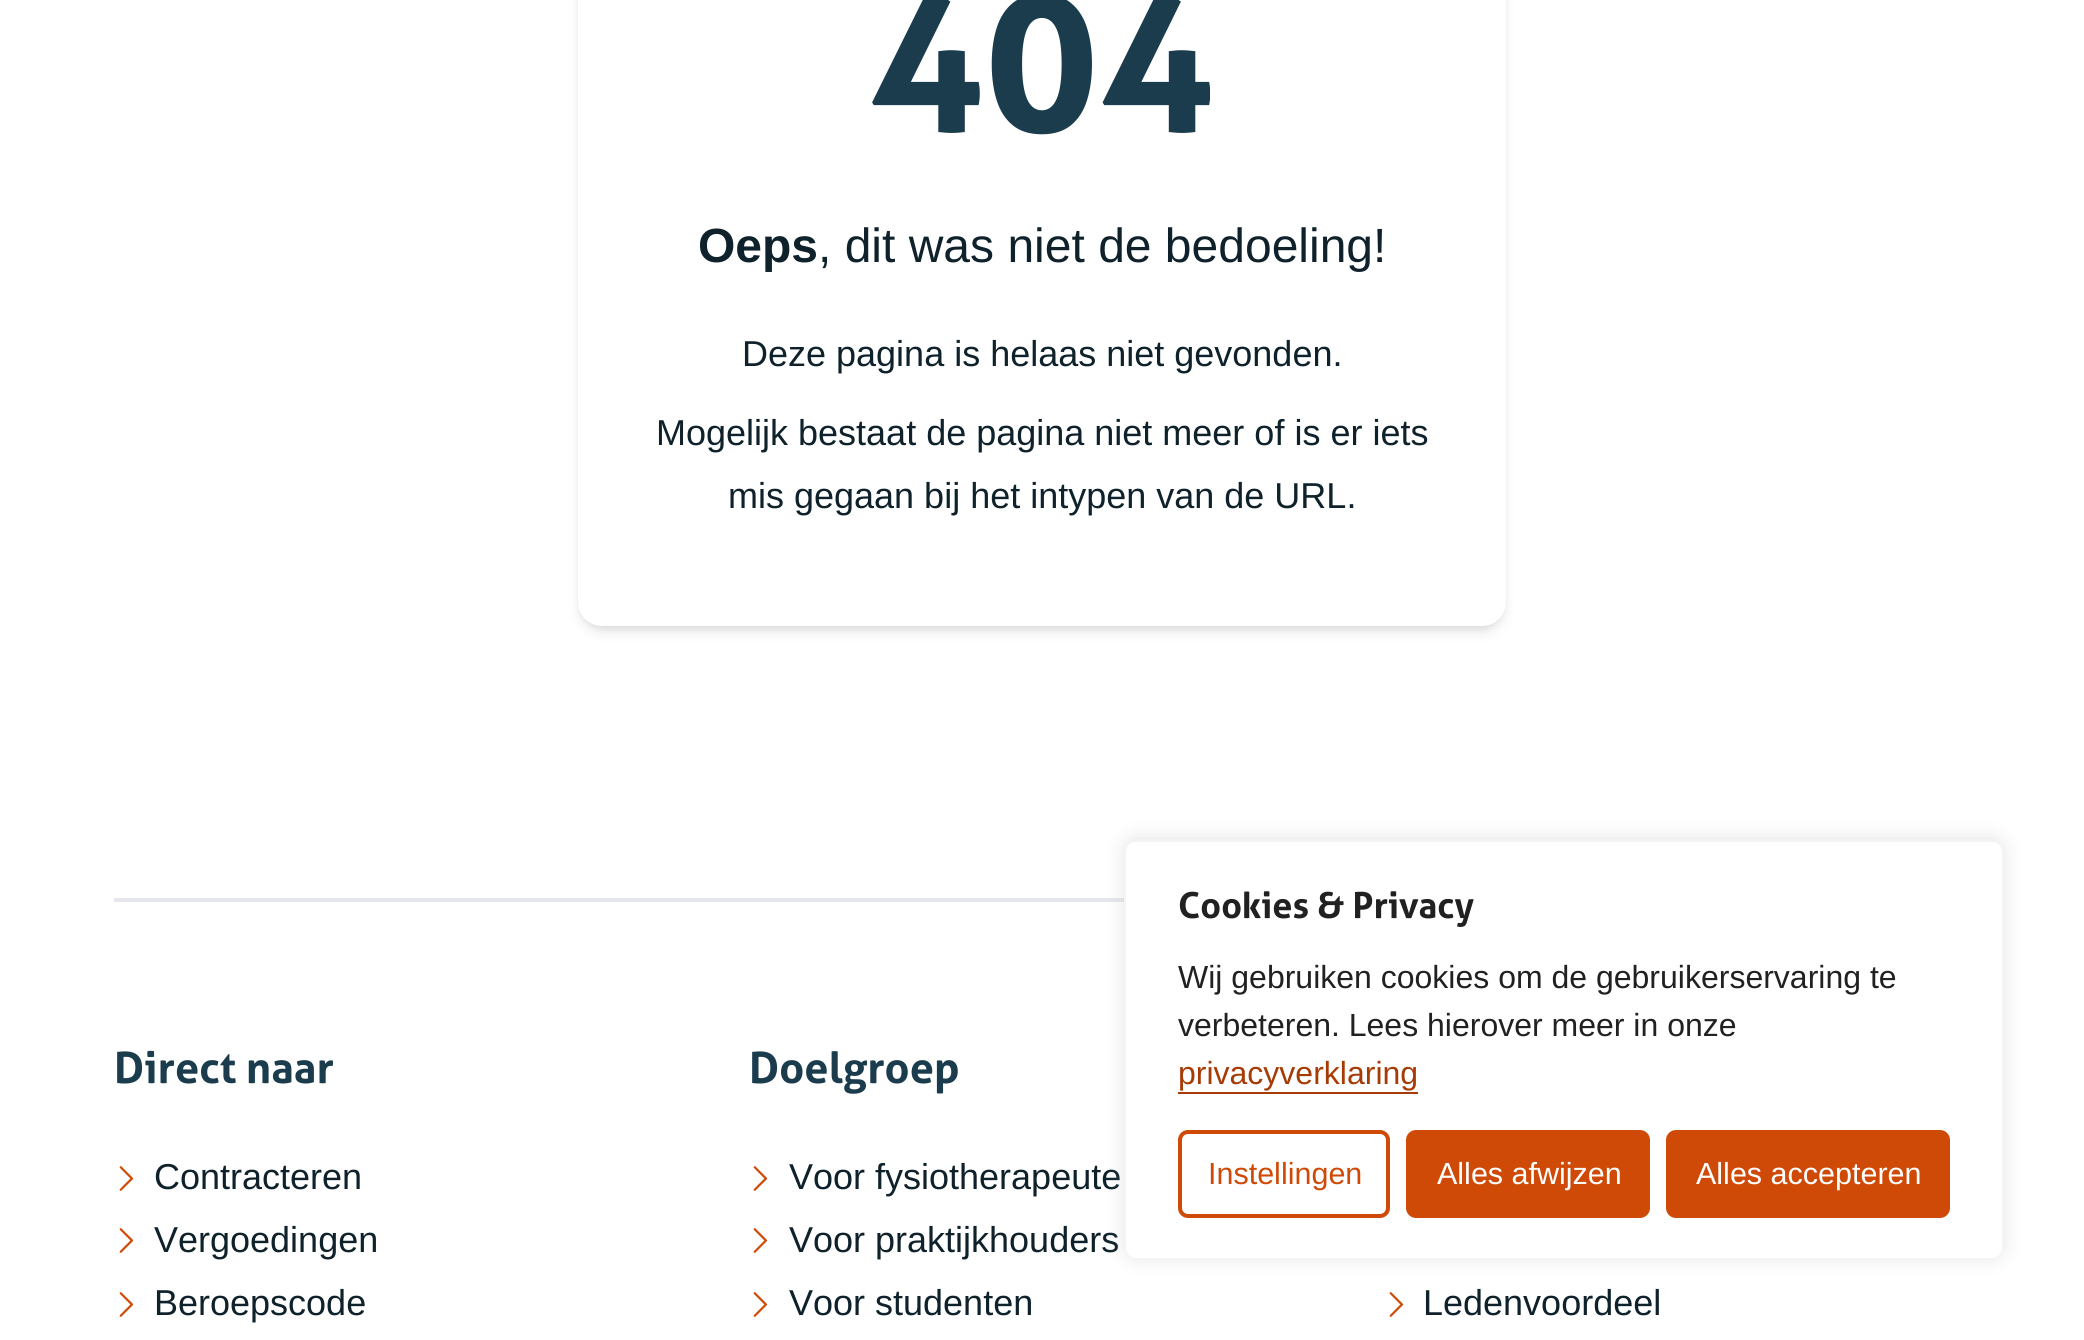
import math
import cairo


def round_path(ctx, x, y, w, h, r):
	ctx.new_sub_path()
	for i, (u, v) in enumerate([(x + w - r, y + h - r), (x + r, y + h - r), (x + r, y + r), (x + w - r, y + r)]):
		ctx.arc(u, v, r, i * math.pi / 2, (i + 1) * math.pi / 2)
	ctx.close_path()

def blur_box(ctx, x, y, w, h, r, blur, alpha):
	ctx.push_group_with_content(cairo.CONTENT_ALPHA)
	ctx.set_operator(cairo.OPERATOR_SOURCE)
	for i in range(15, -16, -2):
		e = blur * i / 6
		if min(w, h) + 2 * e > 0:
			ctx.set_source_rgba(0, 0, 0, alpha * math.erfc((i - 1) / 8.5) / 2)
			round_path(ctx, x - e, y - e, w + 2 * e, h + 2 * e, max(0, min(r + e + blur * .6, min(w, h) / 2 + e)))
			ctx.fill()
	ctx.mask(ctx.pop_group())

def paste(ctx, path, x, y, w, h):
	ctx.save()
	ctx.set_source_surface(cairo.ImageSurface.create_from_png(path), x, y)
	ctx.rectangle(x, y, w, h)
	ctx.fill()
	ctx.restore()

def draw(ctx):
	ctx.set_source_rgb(1, 1, 1)
	ctx.paint()
	ctx.set_source_rgb(0, 0, 0)
	blur_box(ctx, 582, -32, 920, 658, 20, 4, 0.1)
	blur_box(ctx, 580, -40, 924, 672, 22, 6, 0.1)
	ctx.set_source_rgb(1, 1, 1)
	round_path(ctx, 578, -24, 928, 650, 24)
	ctx.fill()
	ctx.select_font_face('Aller', cairo.FONT_SLANT_NORMAL, cairo.FONT_WEIGHT_BOLD)
	ctx.set_font_size(192)
	ctx.set_source_rgb(0.106, 0.235, 0.302)
	ctx.move_to(869, 132)
	ctx.show_text('404')
	ctx.select_font_face('Liberation Sans', cairo.FONT_SLANT_NORMAL, cairo.FONT_WEIGHT_BOLD)
	ctx.set_font_size(48)
	ctx.set_source_rgb(0.059, 0.133, 0.169)
	ctx.move_to(698, 262)
	ctx.show_text('Oeps')
	ctx.select_font_face('Liberation Sans')
	ctx.move_to(818, 262)
	ctx.show_text(', dit was niet de bedoeling!')
	ctx.set_font_size(36)
	for x, y, s in [
		(742, 366, 'Deze pagina is helaas niet gevonden.'),
		(656, 445, 'Mogelijk bestaat de pagina niet meer of is er iets'),
		(728, 508, 'mis gegaan bij het intypen van de URL.'),
	]:
		ctx.move_to(x, y)
		ctx.show_text(s)
	ctx.set_source_rgb(0.898, 0.906, 0.922)
	ctx.rectangle(114, 898, 1010, 4)
	ctx.fill()
	ctx.select_font_face('Aller', cairo.FONT_SLANT_NORMAL, cairo.FONT_WEIGHT_BOLD)
	ctx.set_font_size(43.25)
	ctx.set_source_rgb(0.106, 0.235, 0.302)
	ctx.move_to(114, 1083)
	ctx.show_text('Direct naar')
	paste(ctx, 'media/1.png', 119, 1166, 15, 25)
	ctx.select_font_face('Liberation Sans')
	ctx.set_font_size(36)
	ctx.set_source_rgb(0.059, 0.133, 0.169)
	ctx.move_to(154, 1189)
	ctx.show_text('Contracteren')
	paste(ctx, 'media/1.png', 119, 1228, 15, 25)
	ctx.move_to(154, 1252)
	ctx.show_text('Vergoedingen')
	paste(ctx, 'media/1.png', 119, 1292, 15, 25)
	ctx.move_to(154, 1315)
	ctx.show_text('Beroepscode')
	ctx.select_font_face('Aller', cairo.FONT_SLANT_NORMAL, cairo.FONT_WEIGHT_BOLD)
	ctx.set_font_size(43.25)
	ctx.set_source_rgb(0.106, 0.235, 0.302)
	ctx.move_to(749, 1083)
	ctx.show_text('Doelgroep')
	paste(ctx, 'media/1.png', 753, 1166, 15, 25)
	ctx.select_font_face('Liberation Sans')
	ctx.set_font_size(36)
	ctx.set_source_rgb(0.059, 0.133, 0.169)
	ctx.move_to(789, 1189)
	ctx.show_text('Voor fysiotherapeute')
	paste(ctx, 'media/1.png', 753, 1228, 15, 25)
	ctx.move_to(789, 1252)
	ctx.show_text('Voor praktijkhouders')
	paste(ctx, 'media/1.png', 753, 1292, 15, 25)
	ctx.move_to(789, 1315)
	ctx.show_text('Voor studenten')
	paste(ctx, 'media/1.png', 1389, 1292, 15, 25)
	ctx.move_to(1423, 1315)
	ctx.show_text('Ledenvoordeel')
	ctx.set_source_rgb(0.675, 0.671, 0.671)
	blur_box(ctx, 1124, 838, 880, 420, 12, 10, 0.3)
	ctx.set_source_rgb(1, 1, 1)
	round_path(ctx, 1125, 841, 878, 418, 11)
	ctx.fill_preserve()
	ctx.set_source_rgb(0.957, 0.957, 0.957)
	ctx.stroke()
	ctx.select_font_face('Aller', cairo.FONT_SLANT_NORMAL, cairo.FONT_WEIGHT_BOLD)
	ctx.set_source_rgb(0.129, 0.129, 0.129)
	ctx.move_to(1178, 918)
	ctx.show_text('Cookies & Privacy')
	ctx.select_font_face('Liberation Sans')
	ctx.set_font_size(32)
	ctx.move_to(1178, 988)
	ctx.show_text('Wij gebruiken cookies om de gebruikerservaring te')
	ctx.move_to(1178, 1036)
	ctx.show_text('verbeteren. Lees hierover meer in onze')
	ctx.set_source_rgb(0.651, 0.231, 0.024)
	ctx.move_to(1178, 1084)
	ctx.show_text('privacyverklaring')
	ctx.rectangle(1178, 1092, 240, 2)
	ctx.fill()
	round_path(ctx, 1180, 1132, 208, 84, 8)
	ctx.set_source_rgb(0.812, 0.29, 0.027)
	ctx.set_line_width(4)
	ctx.stroke()
	ctx.set_font_size(30.5)
	ctx.move_to(1208, 1184)
	ctx.show_text('Instellingen')
	round_path(ctx, 1408, 1132, 240, 84, 8)
	ctx.fill_preserve()
	ctx.stroke()
	ctx.set_source_rgb(1, 1, 1)
	ctx.move_to(1437, 1184)
	ctx.show_text('Alles afwijzen')
	ctx.set_source_rgb(0.812, 0.29, 0.027)
	round_path(ctx, 1668, 1132, 280, 84, 8)
	ctx.fill_preserve()
	ctx.stroke()
	ctx.set_source_rgb(1, 1, 1)
	ctx.move_to(1696, 1184)
	ctx.show_text('Alles accepteren')


surface = cairo.ImageSurface(cairo.FORMAT_RGB24, 2084, 1340)
ctx = cairo.Context(surface)
options = cairo.FontOptions()
options.set_hint_metrics(cairo.HINT_METRICS_OFF)
options.set_hint_style(cairo.HINT_STYLE_NONE)
ctx.set_font_options(options)
ctx.set_miter_limit(4)
draw(ctx)
surface.write_to_png('image.png')
